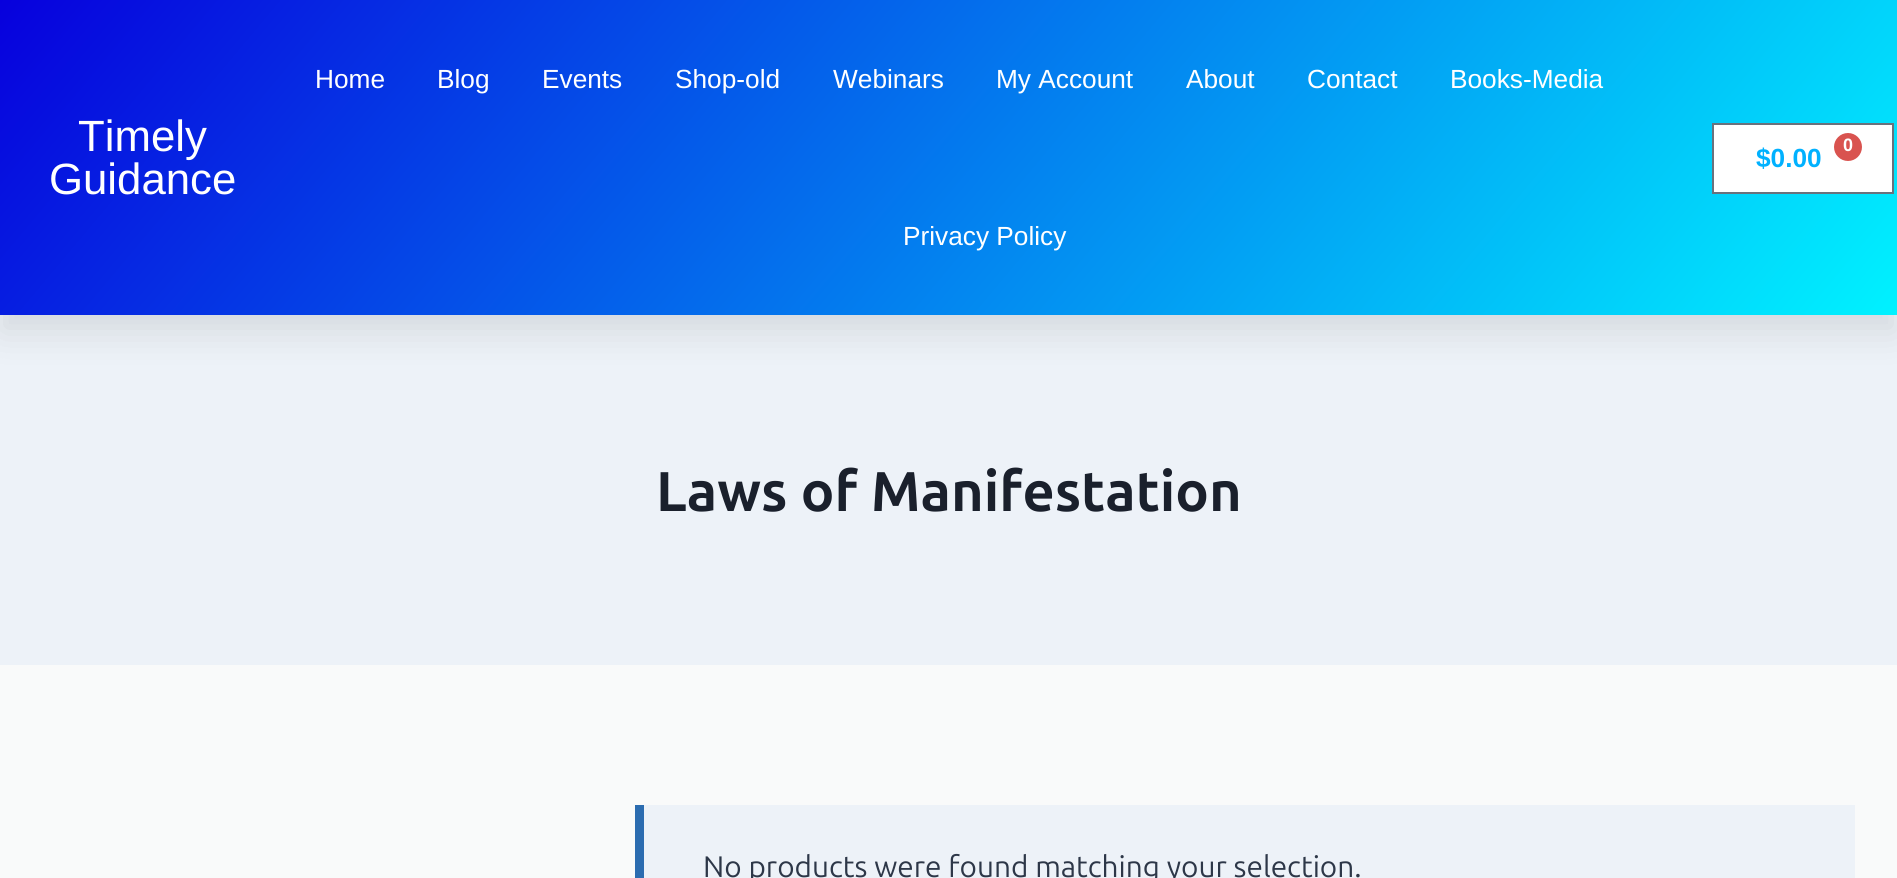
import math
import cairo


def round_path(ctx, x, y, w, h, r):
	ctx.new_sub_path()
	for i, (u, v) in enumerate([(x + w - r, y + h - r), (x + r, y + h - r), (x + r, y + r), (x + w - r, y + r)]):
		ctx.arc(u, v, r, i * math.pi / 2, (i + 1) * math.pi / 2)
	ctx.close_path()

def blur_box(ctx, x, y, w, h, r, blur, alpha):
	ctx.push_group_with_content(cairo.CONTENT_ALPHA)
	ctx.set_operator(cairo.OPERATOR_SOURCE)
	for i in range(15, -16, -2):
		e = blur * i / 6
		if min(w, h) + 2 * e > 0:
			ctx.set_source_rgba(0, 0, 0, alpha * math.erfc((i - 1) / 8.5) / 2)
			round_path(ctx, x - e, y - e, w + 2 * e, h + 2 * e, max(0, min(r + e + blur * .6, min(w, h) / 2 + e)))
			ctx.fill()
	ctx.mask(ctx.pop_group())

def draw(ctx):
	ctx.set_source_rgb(0.973, 0.98, 0.98)
	ctx.paint()
	ctx.set_source_rgb(0.929, 0.949, 0.969)
	ctx.rectangle(0, 315, 1897, 350)
	ctx.fill()
	ctx.set_source_rgb(0, 0, 0)
	blur_box(ctx, 0, 18, 1897, 315, 0, 17.5, 0.1)
	gradient = cairo.LinearGradient(314, -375, 1583, 690)
	gradient.add_color_stop_rgba(0, 0.027, 0, 0.867, 1)
	gradient.add_color_stop_rgba(1, 0, 0.949, 1, 1)
	ctx.set_source(gradient)
	ctx.rectangle(0, 0, 1897, 315)
	ctx.fill()
	ctx.select_font_face('Liberation Sans')
	ctx.set_font_size(43.75)
	ctx.set_source_rgb(1, 1, 1)
	ctx.move_to(78, 151)
	ctx.show_text('Timely')
	ctx.move_to(49, 194)
	ctx.show_text('Guidance')
	ctx.set_font_size(26.25)
	for x, y, s in [
		(315, 88, 'Home'),
		(437, 88, 'Blog'),
		(542, 88, 'Events'),
		(675, 88, 'Shop-old'),
		(833, 88, 'Webinars'),
		(996, 88, 'My Account'),
		(1186, 88, 'About'),
		(1307, 88, 'Contact'),
		(1450, 88, 'Books-Media'),
		(903, 245, 'Privacy Policy'),
	]:
		ctx.move_to(x, y)
		ctx.show_text(s)
	ctx.rectangle(1713, 124, 180, 69)
	ctx.fill_preserve()
	ctx.set_source_rgb(0.412, 0.447, 0.49)
	ctx.stroke()
	ctx.set_source_rgb(0.851, 0.325, 0.31)
	ctx.arc(1848, 147, 14, 0, 2 * math.pi)
	ctx.fill()
	ctx.select_font_face('Liberation Sans', cairo.FONT_SLANT_NORMAL, cairo.FONT_WEIGHT_BOLD)
	ctx.set_font_size(18)
	ctx.set_source_rgb(1, 1, 1)
	ctx.move_to(1843, 151)
	ctx.show_text('0')
	ctx.set_font_size(26.25)
	ctx.set_source_rgb(0, 0.694, 1)
	ctx.move_to(1756, 167)
	ctx.show_text('$0.00')
	ctx.select_font_face('Ubuntu', cairo.FONT_SLANT_NORMAL, cairo.FONT_WEIGHT_BOLD)
	ctx.set_font_size(56)
	ctx.set_source_rgb(0.102, 0.125, 0.173)
	ctx.move_to(656, 511)
	ctx.show_text('Laws of Manifestation')
	ctx.set_source_rgb(0.929, 0.949, 0.969)
	ctx.rectangle(644, 805, 1211, 73)
	ctx.fill()
	ctx.set_source_rgb(0.169, 0.424, 0.69)
	ctx.rectangle(635, 805, 9, 73)
	ctx.fill()
	ctx.select_font_face('Ubuntu')
	ctx.set_font_size(29.75)
	ctx.set_source_rgb(0.176, 0.216, 0.282)
	ctx.move_to(703, 877)
	ctx.show_text('No products were found matching your selection.')


surface = cairo.ImageSurface(cairo.FORMAT_RGB24, 1897, 878)
ctx = cairo.Context(surface)
options = cairo.FontOptions()
options.set_hint_metrics(cairo.HINT_METRICS_OFF)
options.set_hint_style(cairo.HINT_STYLE_NONE)
ctx.set_font_options(options)
ctx.set_miter_limit(4)
draw(ctx)
surface.write_to_png('image.png')
